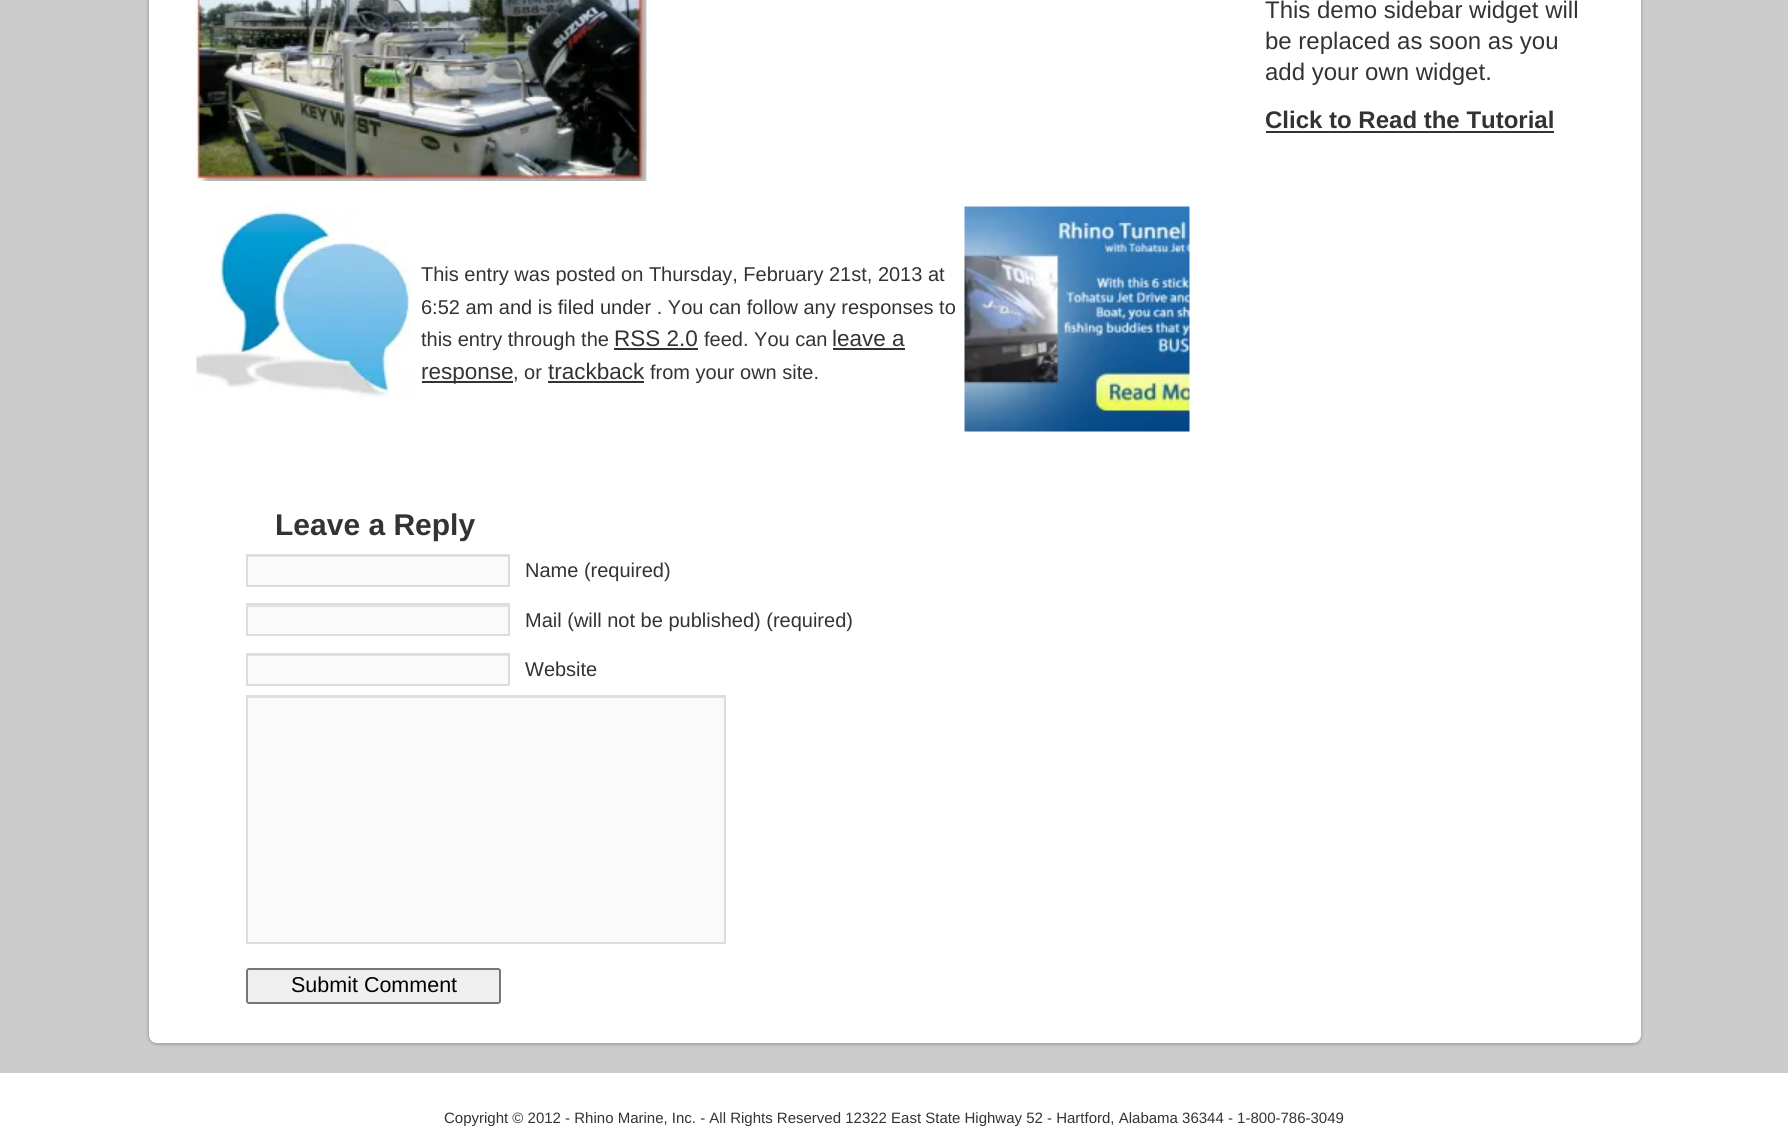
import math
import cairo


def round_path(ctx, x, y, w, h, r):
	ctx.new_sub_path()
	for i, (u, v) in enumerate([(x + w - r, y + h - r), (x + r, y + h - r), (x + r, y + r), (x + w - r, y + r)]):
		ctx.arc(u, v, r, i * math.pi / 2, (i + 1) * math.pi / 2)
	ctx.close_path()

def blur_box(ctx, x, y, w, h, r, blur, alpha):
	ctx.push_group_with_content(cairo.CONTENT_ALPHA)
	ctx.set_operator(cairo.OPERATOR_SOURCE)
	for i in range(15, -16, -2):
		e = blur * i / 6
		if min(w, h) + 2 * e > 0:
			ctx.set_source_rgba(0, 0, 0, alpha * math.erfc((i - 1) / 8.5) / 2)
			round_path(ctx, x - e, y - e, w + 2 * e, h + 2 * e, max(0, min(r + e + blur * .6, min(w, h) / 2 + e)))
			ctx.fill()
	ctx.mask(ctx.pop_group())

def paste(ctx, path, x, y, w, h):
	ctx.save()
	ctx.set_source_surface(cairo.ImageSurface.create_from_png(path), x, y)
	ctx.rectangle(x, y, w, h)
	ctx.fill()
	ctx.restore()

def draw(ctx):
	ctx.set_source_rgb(1, 1, 1)
	ctx.paint()
	ctx.set_source_rgb(0.8, 0.8, 0.8)
	ctx.rectangle(0, 0, 1788, 1073)
	ctx.fill()
	ctx.set_source_rgb(0, 0, 0)
	blur_box(ctx, 149, -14, 1492, 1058, 8, 2, 0.3)
	ctx.set_source_rgb(1, 1, 1)
	round_path(ctx, 149, -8, 1492, 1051, 8)
	ctx.fill()
	ctx.select_font_face('Liberation Sans')
	ctx.set_font_size(24)
	ctx.set_source_rgb(0.2, 0.2, 0.2)
	for x, y, s in [
		(1265, 18, 'This demo sidebar widget will'),
		(1265, 49, 'be replaced as soon as you'),
		(1265, 80, 'add your own widget.'),
	]:
		ctx.move_to(x, y)
		ctx.show_text(s)
	ctx.select_font_face('Liberation Sans', cairo.FONT_SLANT_NORMAL, cairo.FONT_WEIGHT_BOLD)
	ctx.move_to(1265, 128)
	ctx.show_text('Click to Read the Tutorial')
	ctx.rectangle(1266, 131, 288, 2)
	ctx.fill()
	paste(ctx, 'media/1.png', 196, 0, 451, 181)
	paste(ctx, 'media/2.png', 196, 206, 216, 192)
	paste(ctx, 'media/3.png', 964, 206, 226, 226)
	ctx.select_font_face('Liberation Sans')
	ctx.set_font_size(20)
	for x, y, s in [
		(421, 281, 'This entry was posted on Thursday, February 21st, 2013 at'),
		(421, 314, '6:52 am and is filed under . You can follow any responses to'),
		(421, 346, 'this entry through the'),
	]:
		ctx.move_to(x, y)
		ctx.show_text(s)
	ctx.set_font_size(22.5)
	ctx.move_to(614, 346)
	ctx.show_text('RSS 2.0')
	ctx.rectangle(614, 348, 84, 2)
	ctx.fill()
	ctx.set_font_size(20)
	ctx.move_to(704, 346)
	ctx.show_text('feed. You can')
	ctx.set_font_size(22.5)
	ctx.move_to(832, 346)
	ctx.show_text('leave a')
	ctx.rectangle(833, 348, 72, 2)
	ctx.fill()
	ctx.rectangle(422, 381, 91, 2)
	ctx.fill()
	ctx.move_to(421, 379)
	ctx.show_text('response')
	ctx.set_font_size(20)
	ctx.move_to(513, 379)
	ctx.show_text(', or')
	ctx.rectangle(548, 381, 96, 2)
	ctx.fill()
	ctx.set_font_size(22.5)
	ctx.move_to(548, 379)
	ctx.show_text('trackback')
	ctx.set_font_size(20)
	ctx.move_to(650, 379)
	ctx.show_text('from your own site.')
	ctx.select_font_face('Liberation Sans', cairo.FONT_SLANT_NORMAL, cairo.FONT_WEIGHT_BOLD)
	ctx.set_font_size(30)
	ctx.move_to(275, 535)
	ctx.show_text('Leave a Reply')
	ctx.set_source_rgb(0.98, 0.98, 0.98)
	ctx.rectangle(248, 557, 260, 28)
	ctx.fill()
	ctx.set_source_rgb(0.882, 0.882, 0.882)
	ctx.rectangle(248, 556, 261, 1)
	ctx.fill()
	ctx.rectangle(247, 555, 262, 31)
	ctx.set_source_rgb(0.867, 0.867, 0.867)
	ctx.stroke()
	ctx.select_font_face('Liberation Sans')
	ctx.set_font_size(20)
	ctx.set_source_rgb(0.2, 0.2, 0.2)
	ctx.move_to(525, 577)
	ctx.show_text('Name (required)')
	ctx.set_source_rgb(0.98, 0.98, 0.98)
	ctx.rectangle(248, 607, 260, 27)
	ctx.fill()
	ctx.set_source_rgb(0.882, 0.882, 0.882)
	ctx.rectangle(248, 605, 261, 2)
	ctx.fill()
	ctx.rectangle(247, 604, 262, 31)
	ctx.set_source_rgb(0.867, 0.867, 0.867)
	ctx.stroke()
	ctx.set_source_rgb(0.2, 0.2, 0.2)
	ctx.move_to(525, 627)
	ctx.show_text('Mail (will not be published) (required)')
	ctx.set_source_rgb(0.98, 0.98, 0.98)
	ctx.rectangle(248, 656, 260, 28)
	ctx.fill()
	ctx.set_source_rgb(0.882, 0.882, 0.882)
	ctx.rectangle(248, 655, 261, 1)
	ctx.fill()
	ctx.rectangle(247, 654, 262, 31)
	ctx.set_source_rgb(0.867, 0.867, 0.867)
	ctx.stroke()
	ctx.set_source_rgb(0.2, 0.2, 0.2)
	ctx.move_to(525, 676)
	ctx.show_text('Website')
	ctx.set_source_rgb(0.98, 0.98, 0.98)
	ctx.rectangle(248, 698, 476, 244)
	ctx.fill()
	ctx.set_source_rgb(0.882, 0.882, 0.882)
	ctx.rectangle(248, 697, 477, 1)
	ctx.fill()
	ctx.rectangle(247, 696, 478, 247)
	ctx.set_source_rgb(0.867, 0.867, 0.867)
	ctx.stroke()
	ctx.set_source_rgb(0.937, 0.937, 0.937)
	round_path(ctx, 247, 969, 253, 34, 2)
	ctx.fill_preserve()
	ctx.set_source_rgb(0.463, 0.463, 0.463)
	ctx.stroke()
	ctx.set_font_size(21.5)
	ctx.set_source_rgb(0, 0, 0)
	ctx.move_to(291, 992)
	ctx.show_text('Submit Comment')
	ctx.set_font_size(15)
	ctx.set_source_rgb(0.2, 0.2, 0.2)
	ctx.move_to(444, 1123)
	ctx.show_text('Copyright © 2012 - Rhino Marine, Inc. - All Rights Reserved 12322 East State Highway 52 - Hartford, Alabama 36344 - 1-800-786-3049')


surface = cairo.ImageSurface(cairo.FORMAT_RGB24, 1788, 1138)
ctx = cairo.Context(surface)
options = cairo.FontOptions()
options.set_hint_metrics(cairo.HINT_METRICS_OFF)
options.set_hint_style(cairo.HINT_STYLE_NONE)
ctx.set_font_options(options)
ctx.set_miter_limit(4)
draw(ctx)
surface.write_to_png('image.png')
